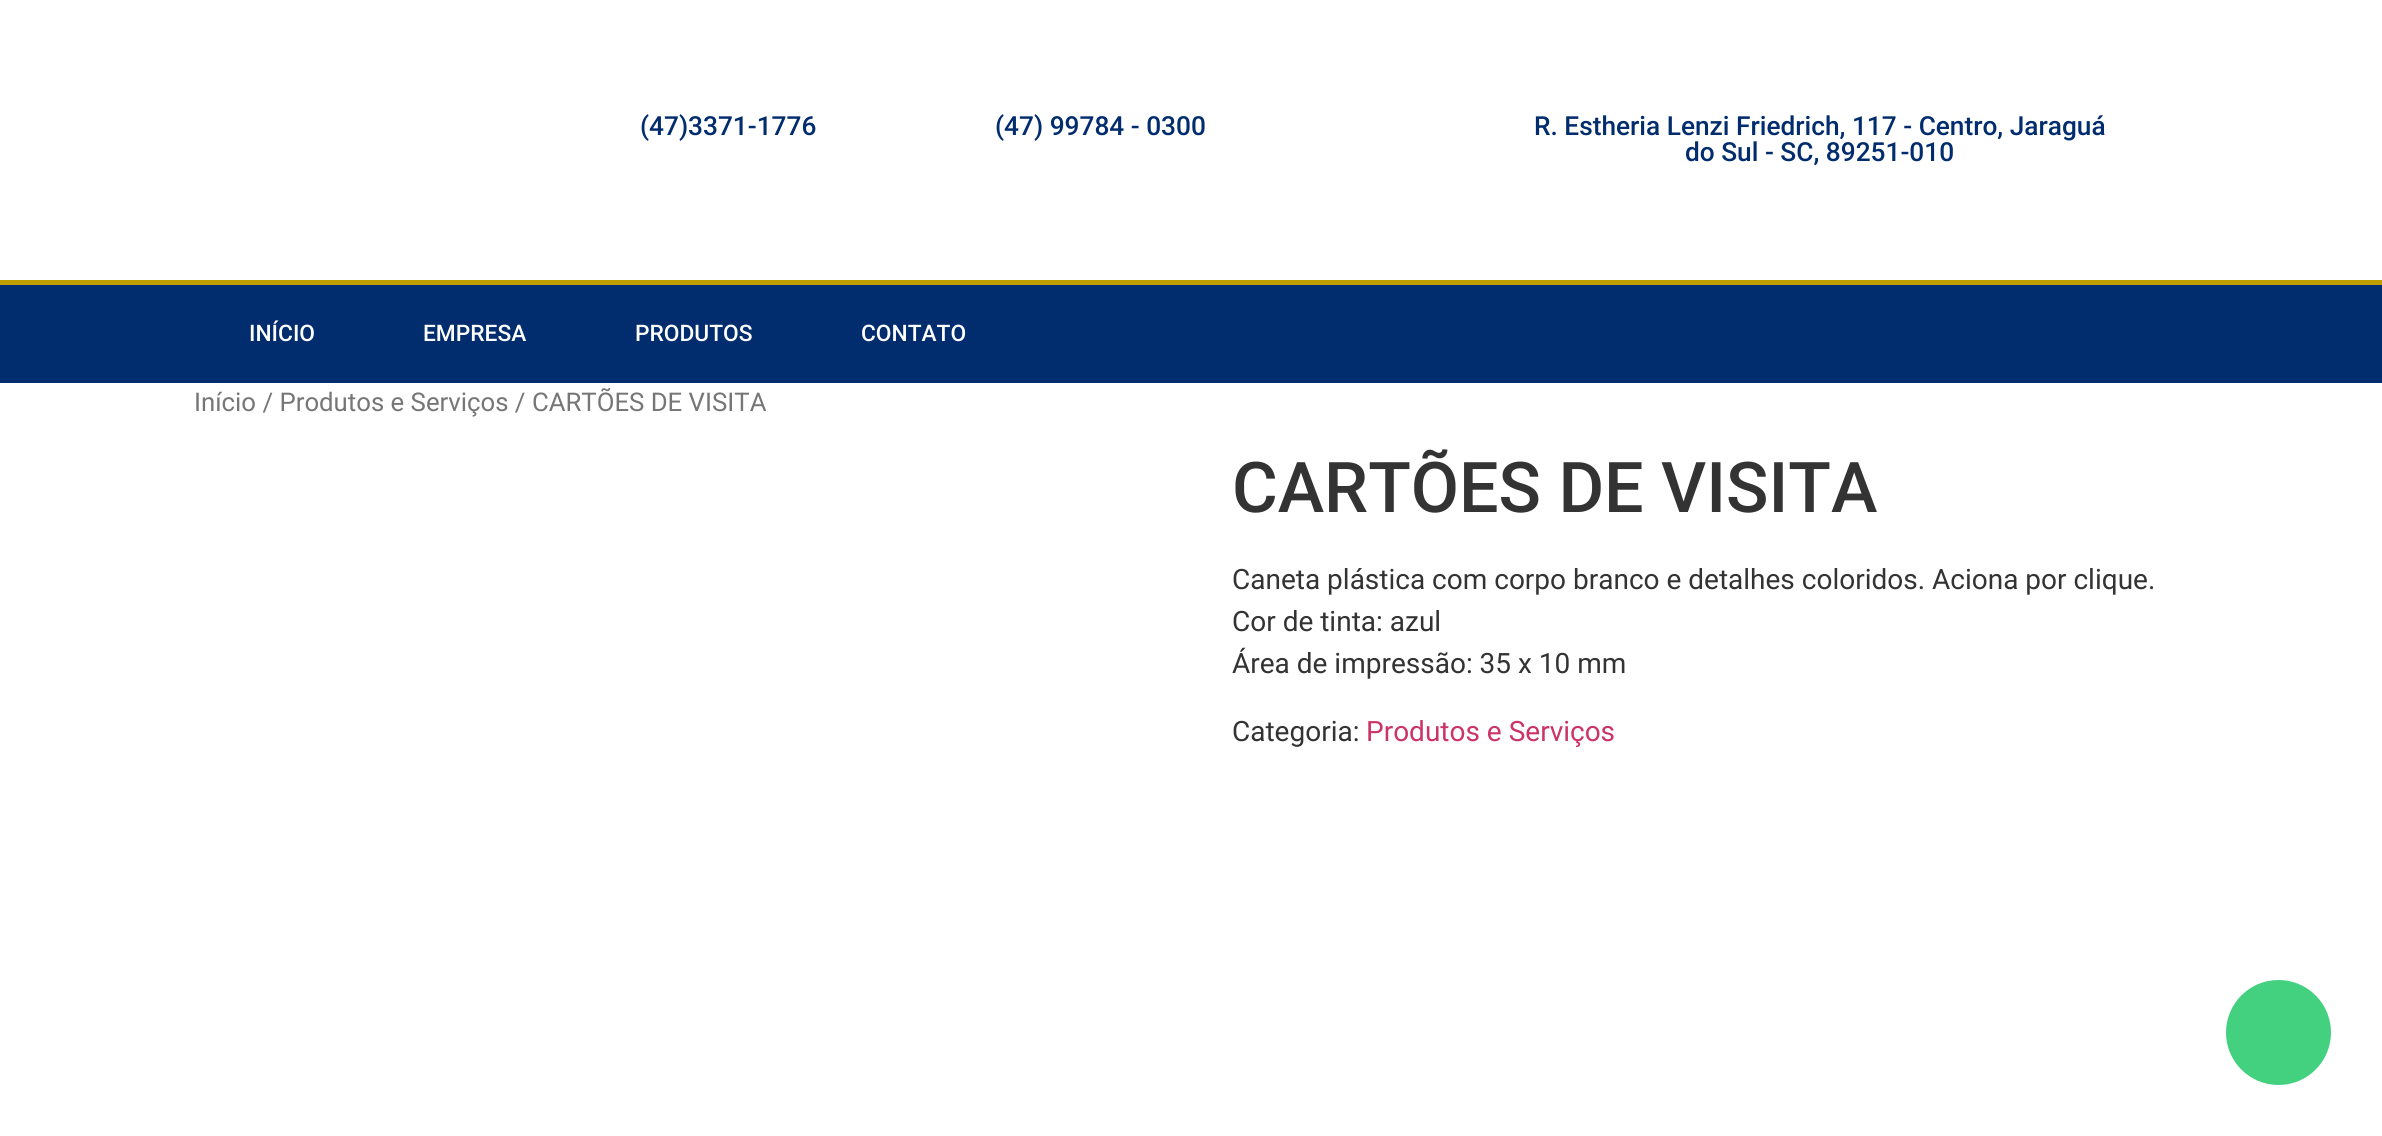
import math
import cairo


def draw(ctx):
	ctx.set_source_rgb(1, 1, 1)
	ctx.paint()
	ctx.select_font_face('Roboto Medium')
	ctx.set_font_size(26.25)
	ctx.set_source_rgb(0.004, 0.173, 0.427)
	for x, y, s in [
		(640, 135, '(47)3371-1776'),
		(995, 135, '(47) 99784 - 0300'),
		(1534, 135, 'R. Estheria Lenzi Friedrich, 117 - Centro, Jaraguá'),
		(1685, 161, 'do Sul - SC, 89251-010'),
	]:
		ctx.move_to(x, y)
		ctx.show_text(s)
	ctx.rectangle(0, 285, 2382, 98)
	ctx.fill()
	ctx.set_source_rgb(0.749, 0.624, 0)
	ctx.rectangle(0, 280, 2382, 5)
	ctx.fill()
	ctx.set_font_size(22.75)
	ctx.set_source_rgb(1, 1, 1)
	for x, y, s in [
		(249, 341, 'INÍCIO'),
		(423, 341, 'EMPRESA'),
		(635, 341, 'PRODUTOS'),
		(861, 341, 'CONTATO'),
	]:
		ctx.move_to(x, y)
		ctx.show_text(s)
	ctx.select_font_face('Roboto')
	ctx.set_font_size(25.75)
	ctx.set_source_rgb(0.463, 0.463, 0.463)
	ctx.move_to(194, 411)
	ctx.show_text('Início / Produtos e Serviços / CARTÕES DE VISITA')
	ctx.select_font_face('Roboto Medium')
	ctx.set_font_size(70)
	ctx.set_source_rgb(0.2, 0.2, 0.2)
	ctx.move_to(1232, 512)
	ctx.show_text('CARTÕES DE VISITA')
	ctx.select_font_face('Roboto')
	ctx.set_font_size(28)
	for x, y, s in [
		(1232, 589, 'Caneta plástica com corpo branco e detalhes coloridos. Aciona por clique.'),
		(1232, 631, 'Cor de tinta: azul'),
		(1232, 673, 'Área de impressão: 35 x 10 mm'),
		(1232, 741, 'Categoria:'),
	]:
		ctx.move_to(x, y)
		ctx.show_text(s)
	ctx.set_source_rgb(0.8, 0.2, 0.4)
	ctx.move_to(1366, 741)
	ctx.show_text('Produtos e Serviços')
	ctx.set_source_rgb(0.263, 0.82, 0.498)
	ctx.new_path()
	ctx.arc(2278.5, 1032.5, 52.5, 0, 2 * math.pi)
	ctx.fill()


surface = cairo.ImageSurface(cairo.FORMAT_RGB24, 2382, 1136)
ctx = cairo.Context(surface)
options = cairo.FontOptions()
options.set_hint_metrics(cairo.HINT_METRICS_OFF)
options.set_hint_style(cairo.HINT_STYLE_NONE)
ctx.set_font_options(options)
ctx.set_miter_limit(4)
draw(ctx)
surface.write_to_png('image.png')
